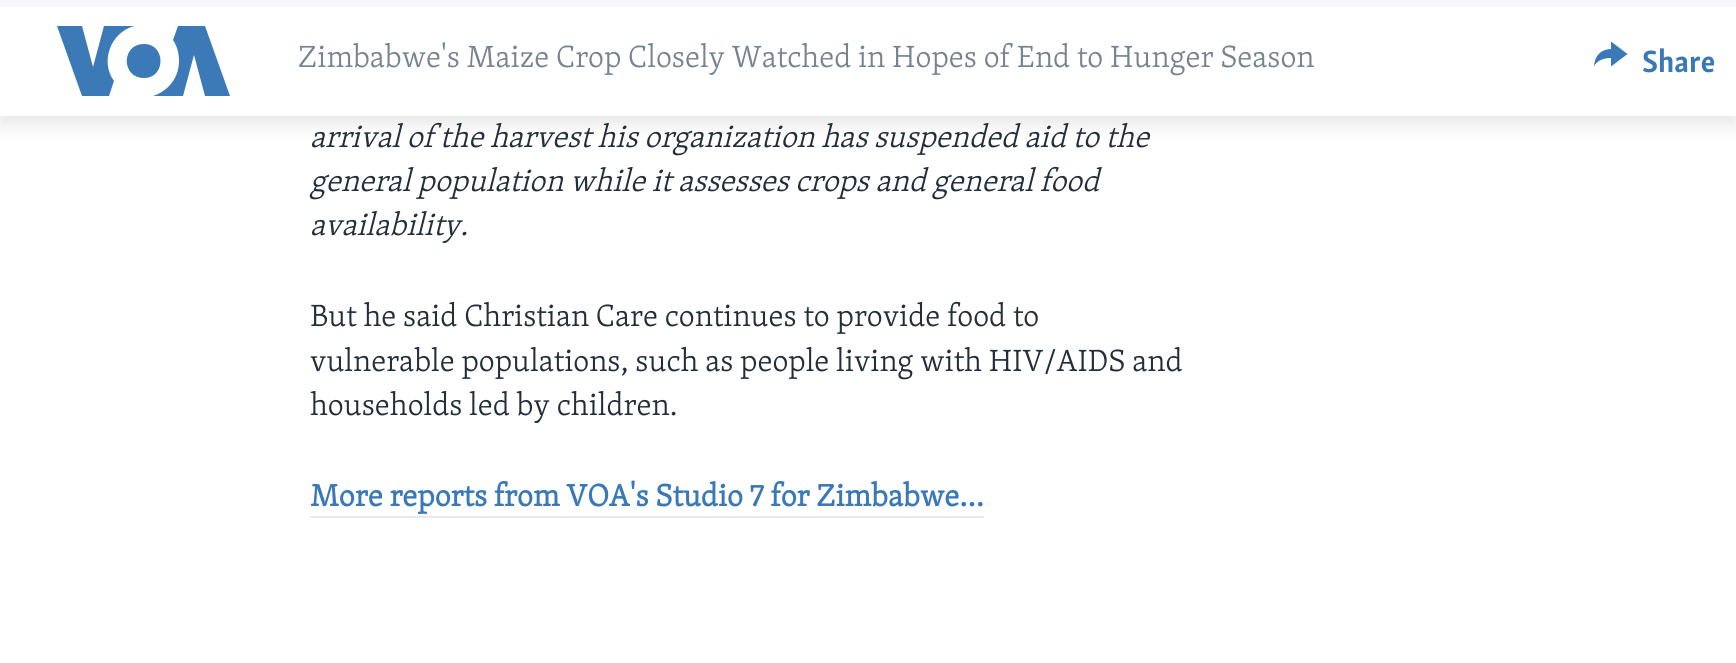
import math
import cairo


def round_path(ctx, x, y, w, h, r):
	ctx.new_sub_path()
	for i, (u, v) in enumerate([(x + w - r, y + h - r), (x + r, y + h - r), (x + r, y + r), (x + w - r, y + r)]):
		ctx.arc(u, v, r, i * math.pi / 2, (i + 1) * math.pi / 2)
	ctx.close_path()

def blur_box(ctx, x, y, w, h, r, blur, alpha):
	ctx.push_group_with_content(cairo.CONTENT_ALPHA)
	ctx.set_operator(cairo.OPERATOR_SOURCE)
	for i in range(15, -16, -2):
		e = blur * i / 6
		if min(w, h) + 2 * e > 0:
			ctx.set_source_rgba(0, 0, 0, alpha * math.erfc((i - 1) / 8.5) / 2)
			round_path(ctx, x - e, y - e, w + 2 * e, h + 2 * e, max(0, min(r + e + blur * .6, min(w, h) / 2 + e)))
			ctx.fill()
	ctx.mask(ctx.pop_group())

def draw(ctx):
	ctx.set_source_rgb(1, 1, 1)
	ctx.paint()
	ctx.set_source_rgb(0, 0, 0)
	blur_box(ctx, 0, 9, 1736, 115, 0, 9, 0.1)
	ctx.set_source_rgb(1, 1, 1)
	ctx.rectangle(0, 7, 1736, 109)
	ctx.fill()
	ctx.set_source_rgb(0.965, 0.969, 0.973)
	ctx.rectangle(0, 0, 1736, 7)
	ctx.fill()
	ctx.set_source_rgb(0.231, 0.475, 0.718)
	ctx.new_path()
	ctx.move_to(114, 81)
	ctx.line_to(109, 96)
	ctx.line_to(82, 96)
	ctx.line_to(57, 26)
	ctx.line_to(82, 26)
	ctx.line_to(93, 67)
	ctx.line_to(104, 26)
	ctx.line_to(134, 26)
	ctx.curve_to(110, 33, 100, 62, 114, 81)
	ctx.close_path()
	ctx.move_to(144, 44)
	ctx.curve_to(121, 44, 121, 78, 144, 78)
	ctx.curve_to(166, 78, 166, 44, 144, 44)
	ctx.close_path()
	ctx.move_to(179, 61)
	ctx.curve_to(179, 78, 168, 91, 153, 96)
	ctx.line_to(183, 96)
	ctx.line_to(194, 55)
	ctx.line_to(205, 96)
	ctx.line_to(230, 96)
	ctx.line_to(205, 26)
	ctx.line_to(178, 26)
	ctx.line_to(173, 40)
	ctx.curve_to(177, 46, 179, 53, 179, 61)
	ctx.close_path()
	ctx.fill()
	ctx.select_font_face('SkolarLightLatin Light')
	ctx.set_font_size(31.5)
	ctx.set_source_rgb(0.463, 0.518, 0.573)
	ctx.move_to(298, 67)
	ctx.show_text('Zimbabwe\'s Maize Crop Closely Watched in Hopes of End to Hunger Season')
	ctx.set_source_rgb(0.227, 0.475, 0.718)
	ctx.new_path()
	ctx.move_to(1594, 66.5)
	ctx.curve_to(1594.5, 56, 1600.5, 49.5, 1611, 49)
	ctx.line_to(1611, 41.5)
	ctx.line_to(1627.5, 54)
	ctx.line_to(1611, 66.5)
	ctx.line_to(1611, 58)
	ctx.curve_to(1604.5, 58, 1597, 60, 1594, 66.5)
	ctx.close_path()
	ctx.fill()
	ctx.select_font_face('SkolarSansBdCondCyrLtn', cairo.FONT_SLANT_NORMAL, cairo.FONT_WEIGHT_BOLD)
	ctx.move_to(1642, 72)
	ctx.show_text('Share')
	ctx.select_font_face('SkolarLightLatin Light', cairo.FONT_SLANT_ITALIC)
	ctx.set_source_rgb(0.133, 0.184, 0.227)
	for x, y, s in [
		(310, 147, 'arrival of the harvest his organization has suspended aid to the'),
		(310, 191, 'general population while it assesses crops and general food'),
		(310, 235, 'availability.'),
	]:
		ctx.move_to(x, y)
		ctx.show_text(s)
	ctx.select_font_face('SkolarLightLatin Light')
	for x, y, s in [
		(310, 326, 'But he said Christian Care continues to provide food to'),
		(310, 371, 'vulnerable populations, such as people living with HIV/AIDS and'),
		(310, 415, 'households led by children.'),
	]:
		ctx.move_to(x, y)
		ctx.show_text(s)
	ctx.select_font_face('SkolarLightLatin', cairo.FONT_SLANT_NORMAL, cairo.FONT_WEIGHT_BOLD)
	ctx.set_source_rgb(0.227, 0.475, 0.718)
	ctx.move_to(310, 506)
	ctx.show_text('More reports from VOA\'s Studio 7 for Zimbabwe...')
	ctx.set_source_rgb(0.91, 0.918, 0.925)
	ctx.rectangle(310, 516, 674, 2)
	ctx.fill()


surface = cairo.ImageSurface(cairo.FORMAT_RGB24, 1736, 663)
ctx = cairo.Context(surface)
options = cairo.FontOptions()
options.set_hint_metrics(cairo.HINT_METRICS_OFF)
options.set_hint_style(cairo.HINT_STYLE_NONE)
ctx.set_font_options(options)
ctx.set_miter_limit(4)
draw(ctx)
surface.write_to_png('image.png')
